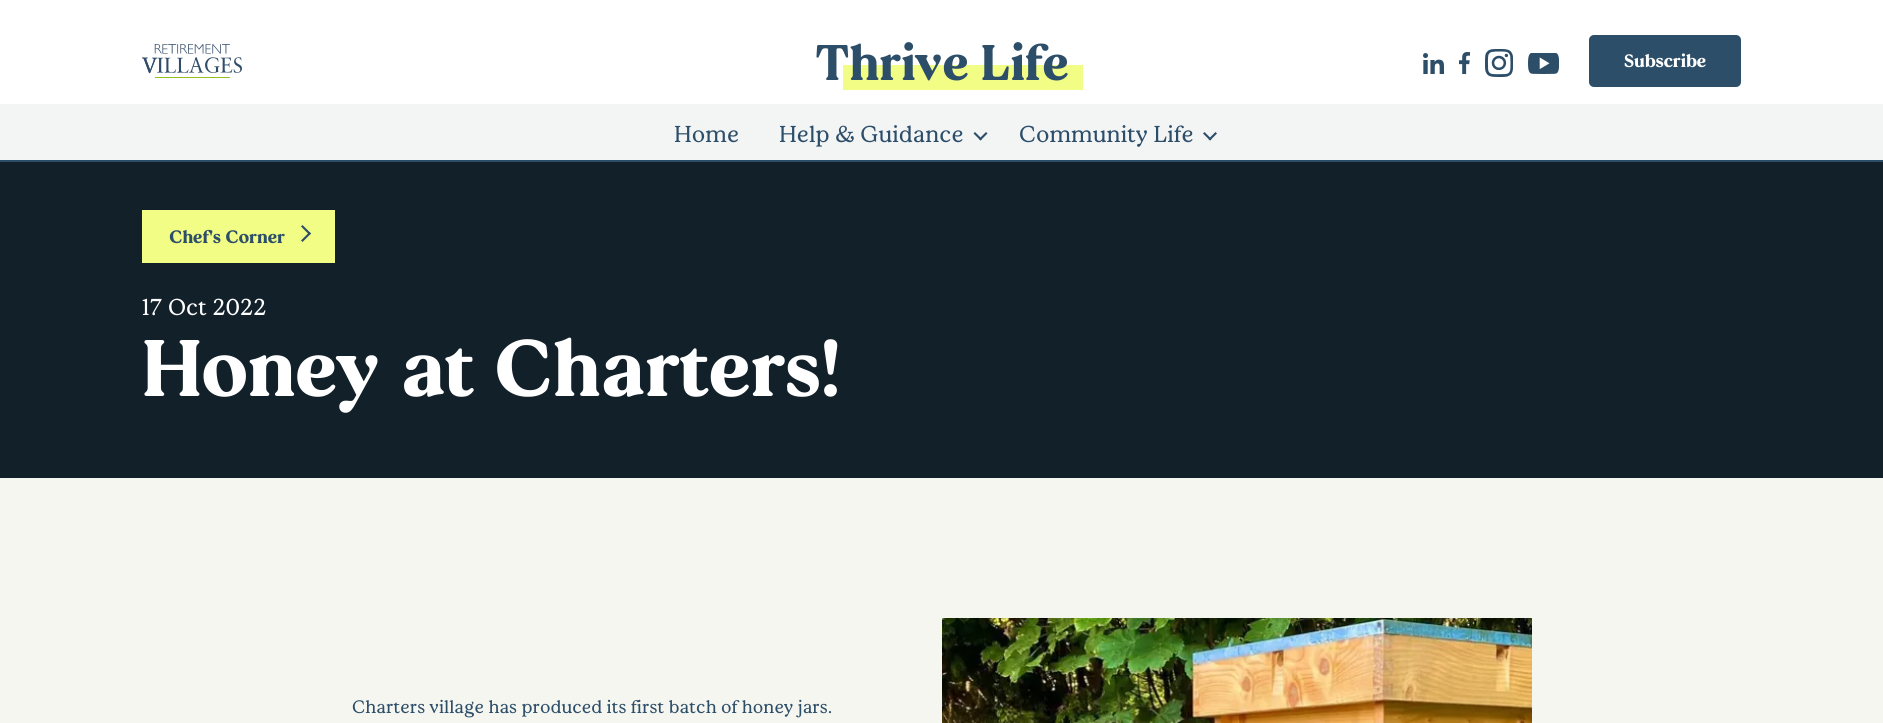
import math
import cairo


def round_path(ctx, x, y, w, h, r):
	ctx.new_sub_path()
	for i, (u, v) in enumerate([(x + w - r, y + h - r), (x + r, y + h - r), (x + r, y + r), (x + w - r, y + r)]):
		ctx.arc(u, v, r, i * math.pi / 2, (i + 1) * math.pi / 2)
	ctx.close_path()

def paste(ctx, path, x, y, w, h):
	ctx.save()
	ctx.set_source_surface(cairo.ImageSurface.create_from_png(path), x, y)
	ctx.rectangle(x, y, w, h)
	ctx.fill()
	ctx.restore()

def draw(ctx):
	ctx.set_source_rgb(1, 1, 1)
	ctx.paint()
	ctx.set_source_rgb(0.176, 0.306, 0.412)
	ctx.rectangle(0, 160, 1883, 2)
	ctx.fill()
	paste(ctx, 'media/1.png', 142, 44, 100, 34)
	ctx.set_source_rgb(0.945, 0.992, 0.522)
	ctx.rectangle(843, 65, 240, 25)
	ctx.fill()
	ctx.select_font_face('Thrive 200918', cairo.FONT_SLANT_NORMAL, cairo.FONT_WEIGHT_BOLD)
	ctx.set_font_size(50)
	ctx.set_source_rgb(0.176, 0.306, 0.412)
	ctx.move_to(815, 80)
	ctx.show_text('Thrive Life')
	paste(ctx, 'media/2.png', 1423, 53, 21, 21)
	paste(ctx, 'media/3.png', 1459, 52, 11, 22)
	paste(ctx, 'media/4.png', 1485, 49, 28, 28)
	paste(ctx, 'media/5.png', 1528, 53, 31, 21)
	round_path(ctx, 1589, 35, 152, 52, 5)
	ctx.fill()
	ctx.set_font_size(18)
	ctx.set_source_rgb(1, 1, 1)
	ctx.move_to(1624, 67)
	ctx.show_text('Subscribe')
	ctx.set_source_rgb(0.953, 0.957, 0.957)
	ctx.rectangle(0, 104, 1883, 56)
	ctx.fill()
	ctx.select_font_face('Thrive 200918')
	ctx.set_font_size(23)
	ctx.set_source_rgb(0.176, 0.306, 0.412)
	ctx.move_to(674, 142)
	ctx.show_text('Home')
	ctx.move_to(779, 142)
	ctx.show_text('Help & Guidance')
	ctx.new_path()
	ctx.move_to(979, 139)
	ctx.line_to(986, 132)
	ctx.line_to(987.5, 133.5)
	ctx.line_to(980.5, 140.5)
	ctx.close_path()
	ctx.fill()
	ctx.new_path()
	ctx.move_to(973.5, 133.5)
	ctx.line_to(975, 132)
	ctx.line_to(982, 139)
	ctx.line_to(980.5, 140.5)
	ctx.close_path()
	ctx.fill()
	ctx.move_to(1019, 142)
	ctx.show_text('Community Life')
	ctx.new_path()
	ctx.move_to(1208.5, 139)
	ctx.line_to(1215.5, 132)
	ctx.line_to(1217, 133.5)
	ctx.line_to(1210, 140.5)
	ctx.close_path()
	ctx.fill()
	ctx.new_path()
	ctx.move_to(1203, 133.5)
	ctx.line_to(1204.5, 132)
	ctx.line_to(1211.5, 139)
	ctx.line_to(1210, 140.5)
	ctx.close_path()
	ctx.fill()
	ctx.set_source_rgb(0.071, 0.125, 0.165)
	ctx.rectangle(0, 162, 1883, 316)
	ctx.fill()
	ctx.set_source_rgb(0.945, 0.992, 0.522)
	ctx.rectangle(142, 210, 193, 53)
	ctx.fill()
	ctx.select_font_face('Thrive 200918', cairo.FONT_SLANT_NORMAL, cairo.FONT_WEIGHT_BOLD)
	ctx.set_font_size(18)
	ctx.set_source_rgb(0.176, 0.306, 0.412)
	ctx.move_to(169, 243)
	ctx.show_text('Chef\'s Corner')
	ctx.new_path()
	ctx.move_to(302.5, 225)
	ctx.line_to(311, 233.5)
	ctx.line_to(309.5, 235)
	ctx.line_to(301, 226.5)
	ctx.close_path()
	ctx.fill()
	ctx.new_path()
	ctx.move_to(309.5, 232)
	ctx.line_to(311, 233.5)
	ctx.line_to(302.5, 242)
	ctx.line_to(301, 240.5)
	ctx.close_path()
	ctx.fill()
	ctx.select_font_face('Thrive 200918')
	ctx.set_font_size(23)
	ctx.set_source_rgb(1, 1, 1)
	ctx.move_to(142, 315)
	ctx.show_text('17 Oct 2022')
	ctx.select_font_face('Thrive 200918', cairo.FONT_SLANT_NORMAL, cairo.FONT_WEIGHT_BOLD)
	ctx.set_font_size(80)
	ctx.move_to(142, 396)
	ctx.show_text('Honey at Charters!')
	ctx.set_source_rgb(0.961, 0.961, 0.941)
	ctx.rectangle(0, 478, 1883, 245)
	ctx.fill()
	ctx.select_font_face('Thrive 200918')
	ctx.set_font_size(18)
	ctx.set_source_rgb(0.176, 0.306, 0.412)
	ctx.move_to(352, 713)
	ctx.show_text('Charters village has produced its first batch of honey jars.')
	paste(ctx, 'media/6.png', 942, 618, 590, 105)


surface = cairo.ImageSurface(cairo.FORMAT_RGB24, 1883, 723)
ctx = cairo.Context(surface)
options = cairo.FontOptions()
options.set_hint_metrics(cairo.HINT_METRICS_OFF)
options.set_hint_style(cairo.HINT_STYLE_NONE)
ctx.set_font_options(options)
ctx.set_miter_limit(4)
draw(ctx)
surface.write_to_png('image.png')
